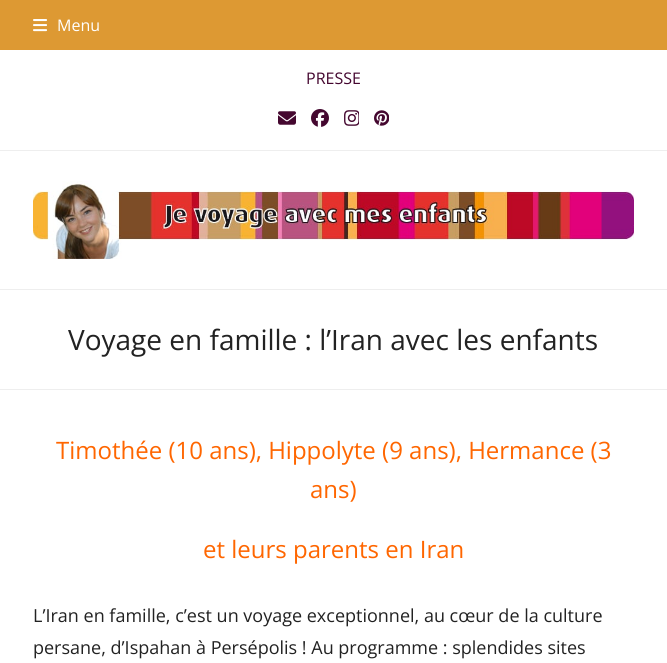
import math
import cairo


def paste(ctx, path, x, y, w, h):
	ctx.save()
	ctx.set_source_surface(cairo.ImageSurface.create_from_png(path), x, y)
	ctx.rectangle(x, y, w, h)
	ctx.fill()
	ctx.restore()

def draw(ctx):
	ctx.set_source_rgb(1, 1, 1)
	ctx.paint()
	ctx.set_source_rgb(0.867, 0.6, 0.2)
	ctx.rectangle(0, 0, 667, 50)
	ctx.fill()
	paste(ctx, 'media/1.png', 33, 19, 14, 13)
	ctx.select_font_face('Open Sans')
	ctx.set_font_size(16)
	ctx.set_source_rgb(1, 1, 1)
	ctx.move_to(57, 31)
	ctx.show_text('Menu')
	ctx.set_source_rgb(0.933, 0.933, 0.933)
	ctx.rectangle(0, 150, 667, 1)
	ctx.fill()
	ctx.set_source_rgb(0.267, 0.027, 0.184)
	ctx.move_to(306, 84)
	ctx.show_text('PRESSE')
	paste(ctx, 'media/2.png', 278, 111, 18, 14)
	paste(ctx, 'media/3.png', 311, 109, 18, 18)
	paste(ctx, 'media/4.png', 344, 110, 15, 16)
	paste(ctx, 'media/5.png', 374, 110, 15, 16)
	paste(ctx, 'media/6.png', 33, 181, 601, 78)
	ctx.set_source_rgb(0.933, 0.933, 0.933)
	ctx.rectangle(0, 289, 667, 1)
	ctx.fill()
	ctx.rectangle(0, 389, 667, 1)
	ctx.fill()
	ctx.set_font_size(28)
	ctx.set_source_rgb(0.133, 0.133, 0.133)
	ctx.move_to(68, 350)
	ctx.show_text('Voyage en famille : l’Iran avec les enfants')
	ctx.set_font_size(24)
	ctx.set_source_rgb(1, 0.4, 0)
	for x, y, s in [
		(56, 459, 'Timothée (10 ans), Hippolyte (9 ans), Hermance (3'),
		(310, 498, 'ans)'),
		(203, 558, 'et leurs parents en Iran'),
	]:
		ctx.move_to(x, y)
		ctx.show_text(s)
	ctx.set_font_size(18)
	ctx.set_source_rgb(0.133, 0.133, 0.133)
	ctx.move_to(33, 622)
	ctx.show_text('L’Iran en famille, c’est un voyage exceptionnel, au cœur de la culture')
	ctx.move_to(33, 654)
	ctx.show_text('persane, d’Ispahan à Persépolis ! Au programme : splendides sites')


surface = cairo.ImageSurface(cairo.FORMAT_RGB24, 667, 663)
ctx = cairo.Context(surface)
options = cairo.FontOptions()
options.set_hint_metrics(cairo.HINT_METRICS_OFF)
options.set_hint_style(cairo.HINT_STYLE_NONE)
ctx.set_font_options(options)
ctx.set_miter_limit(4)
draw(ctx)
surface.write_to_png('image.png')
